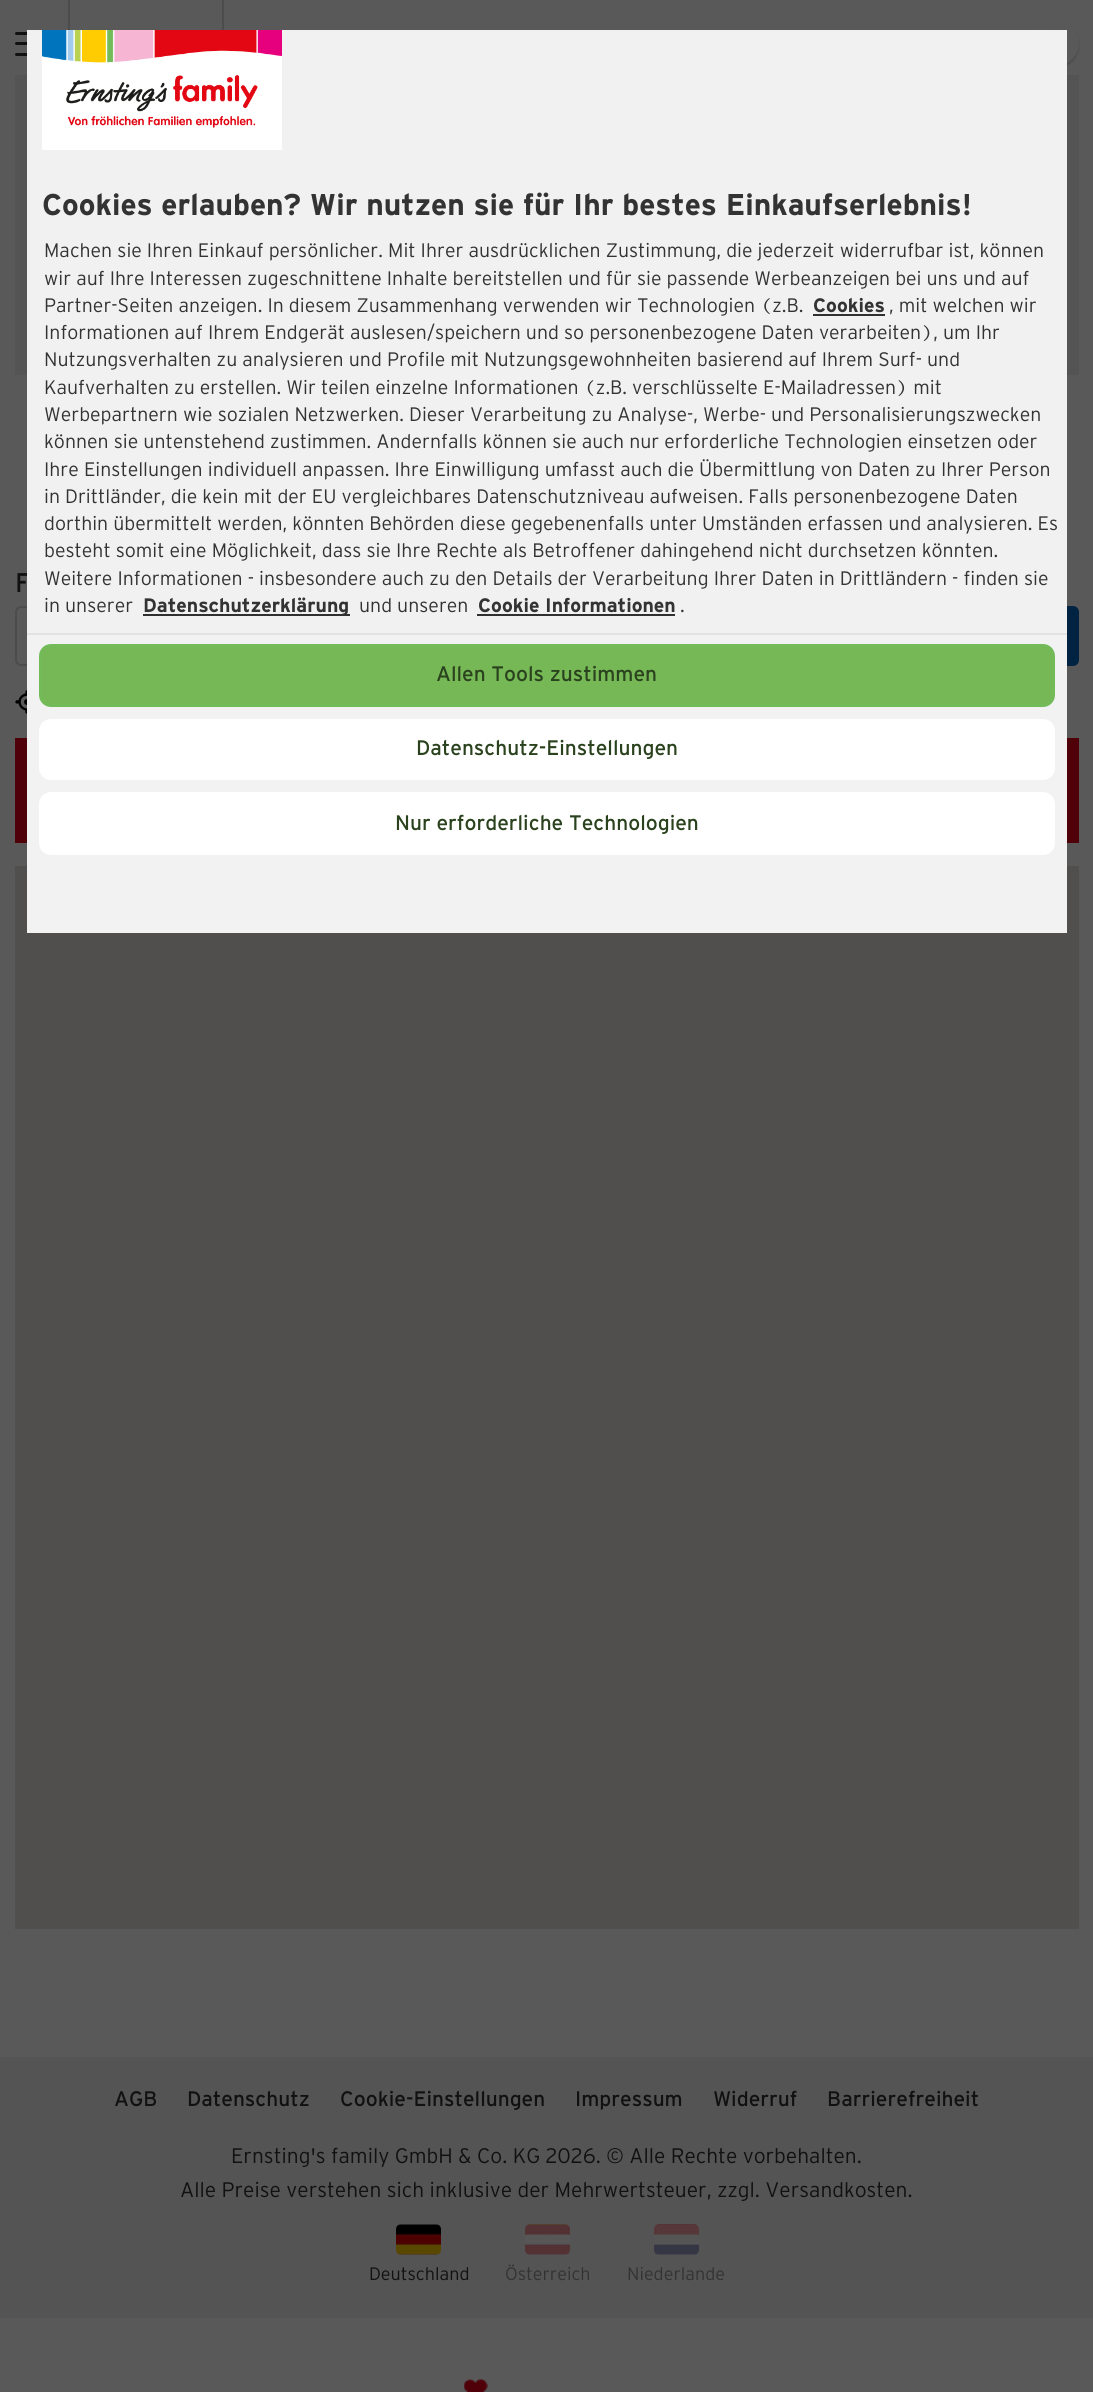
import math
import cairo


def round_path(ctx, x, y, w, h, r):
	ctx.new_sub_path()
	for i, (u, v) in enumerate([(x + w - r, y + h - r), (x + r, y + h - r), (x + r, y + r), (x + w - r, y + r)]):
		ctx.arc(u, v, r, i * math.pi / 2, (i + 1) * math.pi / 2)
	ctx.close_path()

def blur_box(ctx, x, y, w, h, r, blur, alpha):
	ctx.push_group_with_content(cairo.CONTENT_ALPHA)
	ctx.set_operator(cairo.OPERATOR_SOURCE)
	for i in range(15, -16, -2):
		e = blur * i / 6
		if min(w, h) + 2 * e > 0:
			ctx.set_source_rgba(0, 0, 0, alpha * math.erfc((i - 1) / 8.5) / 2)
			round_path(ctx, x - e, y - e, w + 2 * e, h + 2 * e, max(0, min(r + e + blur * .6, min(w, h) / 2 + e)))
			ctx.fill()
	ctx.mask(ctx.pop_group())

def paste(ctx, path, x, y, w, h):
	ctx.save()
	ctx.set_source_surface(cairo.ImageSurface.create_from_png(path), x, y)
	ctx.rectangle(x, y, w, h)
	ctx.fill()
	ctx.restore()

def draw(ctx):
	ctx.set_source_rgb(0.349, 0.349, 0.349)
	ctx.paint()
	ctx.set_source_rgb(0.067, 0.067, 0.067)
	round_path(ctx, 15, 42, 38, 3, 1.5)
	ctx.fill()
	round_path(ctx, 15, 32, 38, 3, 1.5)
	ctx.fill()
	round_path(ctx, 15, 53, 38, 3, 1.5)
	ctx.fill()
	ctx.set_source_rgb(0, 0, 0)
	blur_box(ctx, 1032, 21, 47, 47, 23.5, 1, 0.2)
	ctx.set_source_rgb(0.349, 0.349, 0.349)
	round_path(ctx, 1032, 20, 47, 46, 23)
	ctx.fill()
	ctx.set_source_rgb(0.329, 0.329, 0.329)
	ctx.rectangle(15, 75, 1064, 300)
	ctx.fill()
	ctx.select_font_face('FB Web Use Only')
	ctx.set_font_size(27)
	ctx.set_source_rgb(0.067, 0.067, 0.067)
	ctx.move_to(15, 592)
	ctx.show_text('F')
	round_path(ctx, 16, 607, 988, 58, 5)
	ctx.set_source_rgb(0.298, 0.298, 0.298)
	ctx.stroke()
	ctx.set_source_rgb(0, 0.137, 0.259)
	round_path(ctx, 1020.5, 607.5, 57, 57, 4.5)
	ctx.fill_preserve()
	ctx.set_line_width(3)
	ctx.stroke()
	ctx.set_source_rgb(0.945, 0.945, 0.945)
	ctx.rectangle(27, 30, 1040, 603)
	ctx.fill()
	paste(ctx, 'media/1.png', 42, 30, 240, 120)
	ctx.select_font_face('FB Web Use Only', cairo.FONT_SLANT_NORMAL, cairo.FONT_WEIGHT_BOLD)
	ctx.set_font_size(30)
	ctx.set_source_rgb(0.2, 0.2, 0.2)
	ctx.move_to(42, 215)
	ctx.show_text('Cookies erlauben? Wir nutzen sie für Ihr bestes Einkaufserlebnis!')
	ctx.select_font_face('FB Web Use Only Light')
	ctx.set_font_size(19.5)
	for x, y, s in [
		(44, 257, 'Machen sie Ihren Einkauf persönlicher. Mit Ihrer ausdrücklichen Zustimmung, die jederzeit widerrufbar ist, können'),
		(44, 285, 'wir auf Ihre Interessen zugeschnittene Inhalte bereitstellen und für sie passende Werbeanzeigen bei uns und auf'),
		(44, 312, 'Partner-Seiten anzeigen. In diesem Zusammenhang verwenden wir Technologien (z.B.'),
	]:
		ctx.move_to(x, y)
		ctx.show_text(s)
	ctx.select_font_face('FB Web Use Only', cairo.FONT_SLANT_NORMAL, cairo.FONT_WEIGHT_BOLD)
	ctx.move_to(813, 312)
	ctx.show_text('Cookies')
	ctx.set_source_rgb(0.188, 0.188, 0.188)
	ctx.rectangle(813, 314, 72, 2)
	ctx.fill()
	ctx.select_font_face('FB Web Use Only Light')
	ctx.set_source_rgb(0.2, 0.2, 0.2)
	for x, y, s in [
		(889, 312, ', mit welchen wir'),
		(44, 339, 'Informationen auf Ihrem Endgerät auslesen/speichern und so personenbezogene Daten verarbeiten), um Ihr'),
		(44, 366, 'Nutzungsverhalten zu analysieren und Profile mit Nutzungsgewohnheiten basierend auf Ihrem Surf- und'),
		(44, 394, 'Kaufverhalten zu erstellen. Wir teilen einzelne Informationen (z.B. verschlüsselte E-Mailadressen) mit'),
		(44, 421, 'Werbepartnern wie sozialen Netzwerken. Dieser Verarbeitung zu Analyse-, Werbe- und Personalisierungszwecken'),
		(44, 448, 'können sie untenstehend zustimmen. Andernfalls können sie auch nur erforderliche Technologien einsetzen oder'),
		(44, 476, 'Ihre Einstellungen individuell anpassen. Ihre Einwilligung umfasst auch die Übermittlung von Daten zu Ihrer Person'),
		(44, 503, 'in Drittländer, die kein mit der EU vergleichbares Datenschutzniveau aufweisen. Falls personenbezogene Daten'),
		(44, 530, 'dorthin übermittelt werden, könnten Behörden diese gegebenenfalls unter Umständen erfassen und analysieren. Es'),
		(44, 557, 'besteht somit eine Möglichkeit, dass sie Ihre Rechte als Betroffener dahingehend nicht durchsetzen könnten.'),
		(44, 585, 'Weitere Informationen - insbesondere auch zu den Details der Verarbeitung Ihrer Daten in Drittländern - finden sie'),
		(44, 612, 'in unserer'),
	]:
		ctx.move_to(x, y)
		ctx.show_text(s)
	ctx.set_source_rgb(0.188, 0.188, 0.188)
	ctx.rectangle(143, 614, 207, 2)
	ctx.fill()
	ctx.select_font_face('FB Web Use Only', cairo.FONT_SLANT_NORMAL, cairo.FONT_WEIGHT_BOLD)
	ctx.set_source_rgb(0.2, 0.2, 0.2)
	ctx.move_to(143, 612)
	ctx.show_text('Datenschutzerklärung')
	ctx.select_font_face('FB Web Use Only Light')
	ctx.move_to(359, 612)
	ctx.show_text('und unseren')
	ctx.select_font_face('FB Web Use Only', cairo.FONT_SLANT_NORMAL, cairo.FONT_WEIGHT_BOLD)
	ctx.move_to(478, 612)
	ctx.show_text('Cookie Informationen')
	ctx.set_source_rgb(0.188, 0.188, 0.188)
	ctx.rectangle(477, 614, 198, 2)
	ctx.fill()
	ctx.select_font_face('FB Web Use Only Light')
	ctx.set_source_rgb(0.2, 0.2, 0.2)
	ctx.move_to(680, 612)
	ctx.show_text('.')
	ctx.set_source_rgb(0.31, 0, 0.035)
	ctx.rectangle(15, 738, 1064, 105)
	ctx.fill()
	ctx.set_source_rgb(0.314, 0.31, 0.306)
	ctx.rectangle(15, 866, 1064, 1063)
	ctx.fill()
	ctx.set_source_rgb(0.949, 0.949, 0.949)
	ctx.rectangle(27, 635, 1040, 298)
	ctx.fill()
	ctx.set_source_rgb(0.89, 0.89, 0.89)
	ctx.rectangle(27, 633, 1040, 2)
	ctx.fill()
	ctx.set_source_rgb(0.463, 0.722, 0.337)
	round_path(ctx, 40.5, 645.5, 1013, 60, 10.5)
	ctx.fill_preserve()
	ctx.set_source_rgb(0.451, 0.729, 0.349)
	ctx.stroke()
	ctx.select_font_face('FB Web Use Only')
	ctx.set_font_size(21)
	ctx.set_source_rgb(0.165, 0.259, 0.114)
	ctx.move_to(436, 681)
	ctx.show_text('Allen Tools zustimmen')
	ctx.set_source_rgb(1, 1, 1)
	round_path(ctx, 40.5, 720.5, 1013, 58, 10.5)
	ctx.fill_preserve()
	ctx.stroke()
	ctx.set_source_rgb(0.165, 0.259, 0.114)
	ctx.move_to(416, 755)
	ctx.show_text('Datenschutz-Einstellungen')
	ctx.set_source_rgb(1, 1, 1)
	round_path(ctx, 40.5, 793.5, 1013, 60, 10.5)
	ctx.fill_preserve()
	ctx.stroke()
	ctx.set_source_rgb(0.165, 0.259, 0.114)
	ctx.move_to(395, 830)
	ctx.show_text('Nur erforderliche Technologien')
	ctx.set_source_rgb(0.298, 0.298, 0.298)
	ctx.rectangle(222, 0, 2, 30)
	ctx.fill()
	ctx.rectangle(68, 0, 2, 30)
	ctx.fill()
	paste(ctx, 'media/2.png', 15, 690, 12, 24)
	ctx.set_source_rgb(0.329, 0.329, 0.329)
	ctx.rectangle(0, 2057, 1093, 261)
	ctx.fill()
	ctx.set_source_rgb(0.067, 0.067, 0.067)
	for x, y, s in [
		(114, 2106, 'AGB'),
		(187, 2106, 'Datenschutz'),
		(340, 2106, 'Cookie-Einstellungen'),
		(575, 2106, 'Impressum'),
		(713, 2106, 'Widerruf'),
		(827, 2106, 'Barrierefreiheit'),
	]:
		ctx.move_to(x, y)
		ctx.show_text(s)
	ctx.select_font_face('FB Web Use Only Light')
	ctx.move_to(231, 2163)
	ctx.show_text('Ernsting\'s family GmbH & Co. KG 2026. © Alle Rechte vorbehalten.')
	ctx.move_to(180, 2197)
	ctx.show_text('Alle Preise verstehen sich inklusive der Mehrwertsteuer, zzgl. Versandkosten.')
	paste(ctx, 'media/3.png', 396, 2224, 45, 31)
	ctx.set_font_size(18)
	ctx.move_to(369, 2280)
	ctx.show_text('Deutschland')
	paste(ctx, 'media/4.png', 525, 2224, 45, 31)
	ctx.set_source_rgb(0.2, 0.2, 0.2)
	ctx.move_to(505, 2280)
	ctx.show_text('Österreich')
	paste(ctx, 'media/5.png', 654, 2224, 45, 31)
	ctx.move_to(627, 2280)
	ctx.show_text('Niederlande')
	paste(ctx, 'media/6.png', 464, 2379, 24, 13)


surface = cairo.ImageSurface(cairo.FORMAT_RGB24, 1093, 2392)
ctx = cairo.Context(surface)
options = cairo.FontOptions()
options.set_hint_metrics(cairo.HINT_METRICS_OFF)
options.set_hint_style(cairo.HINT_STYLE_NONE)
ctx.set_font_options(options)
ctx.set_miter_limit(4)
draw(ctx)
surface.write_to_png('image.png')
